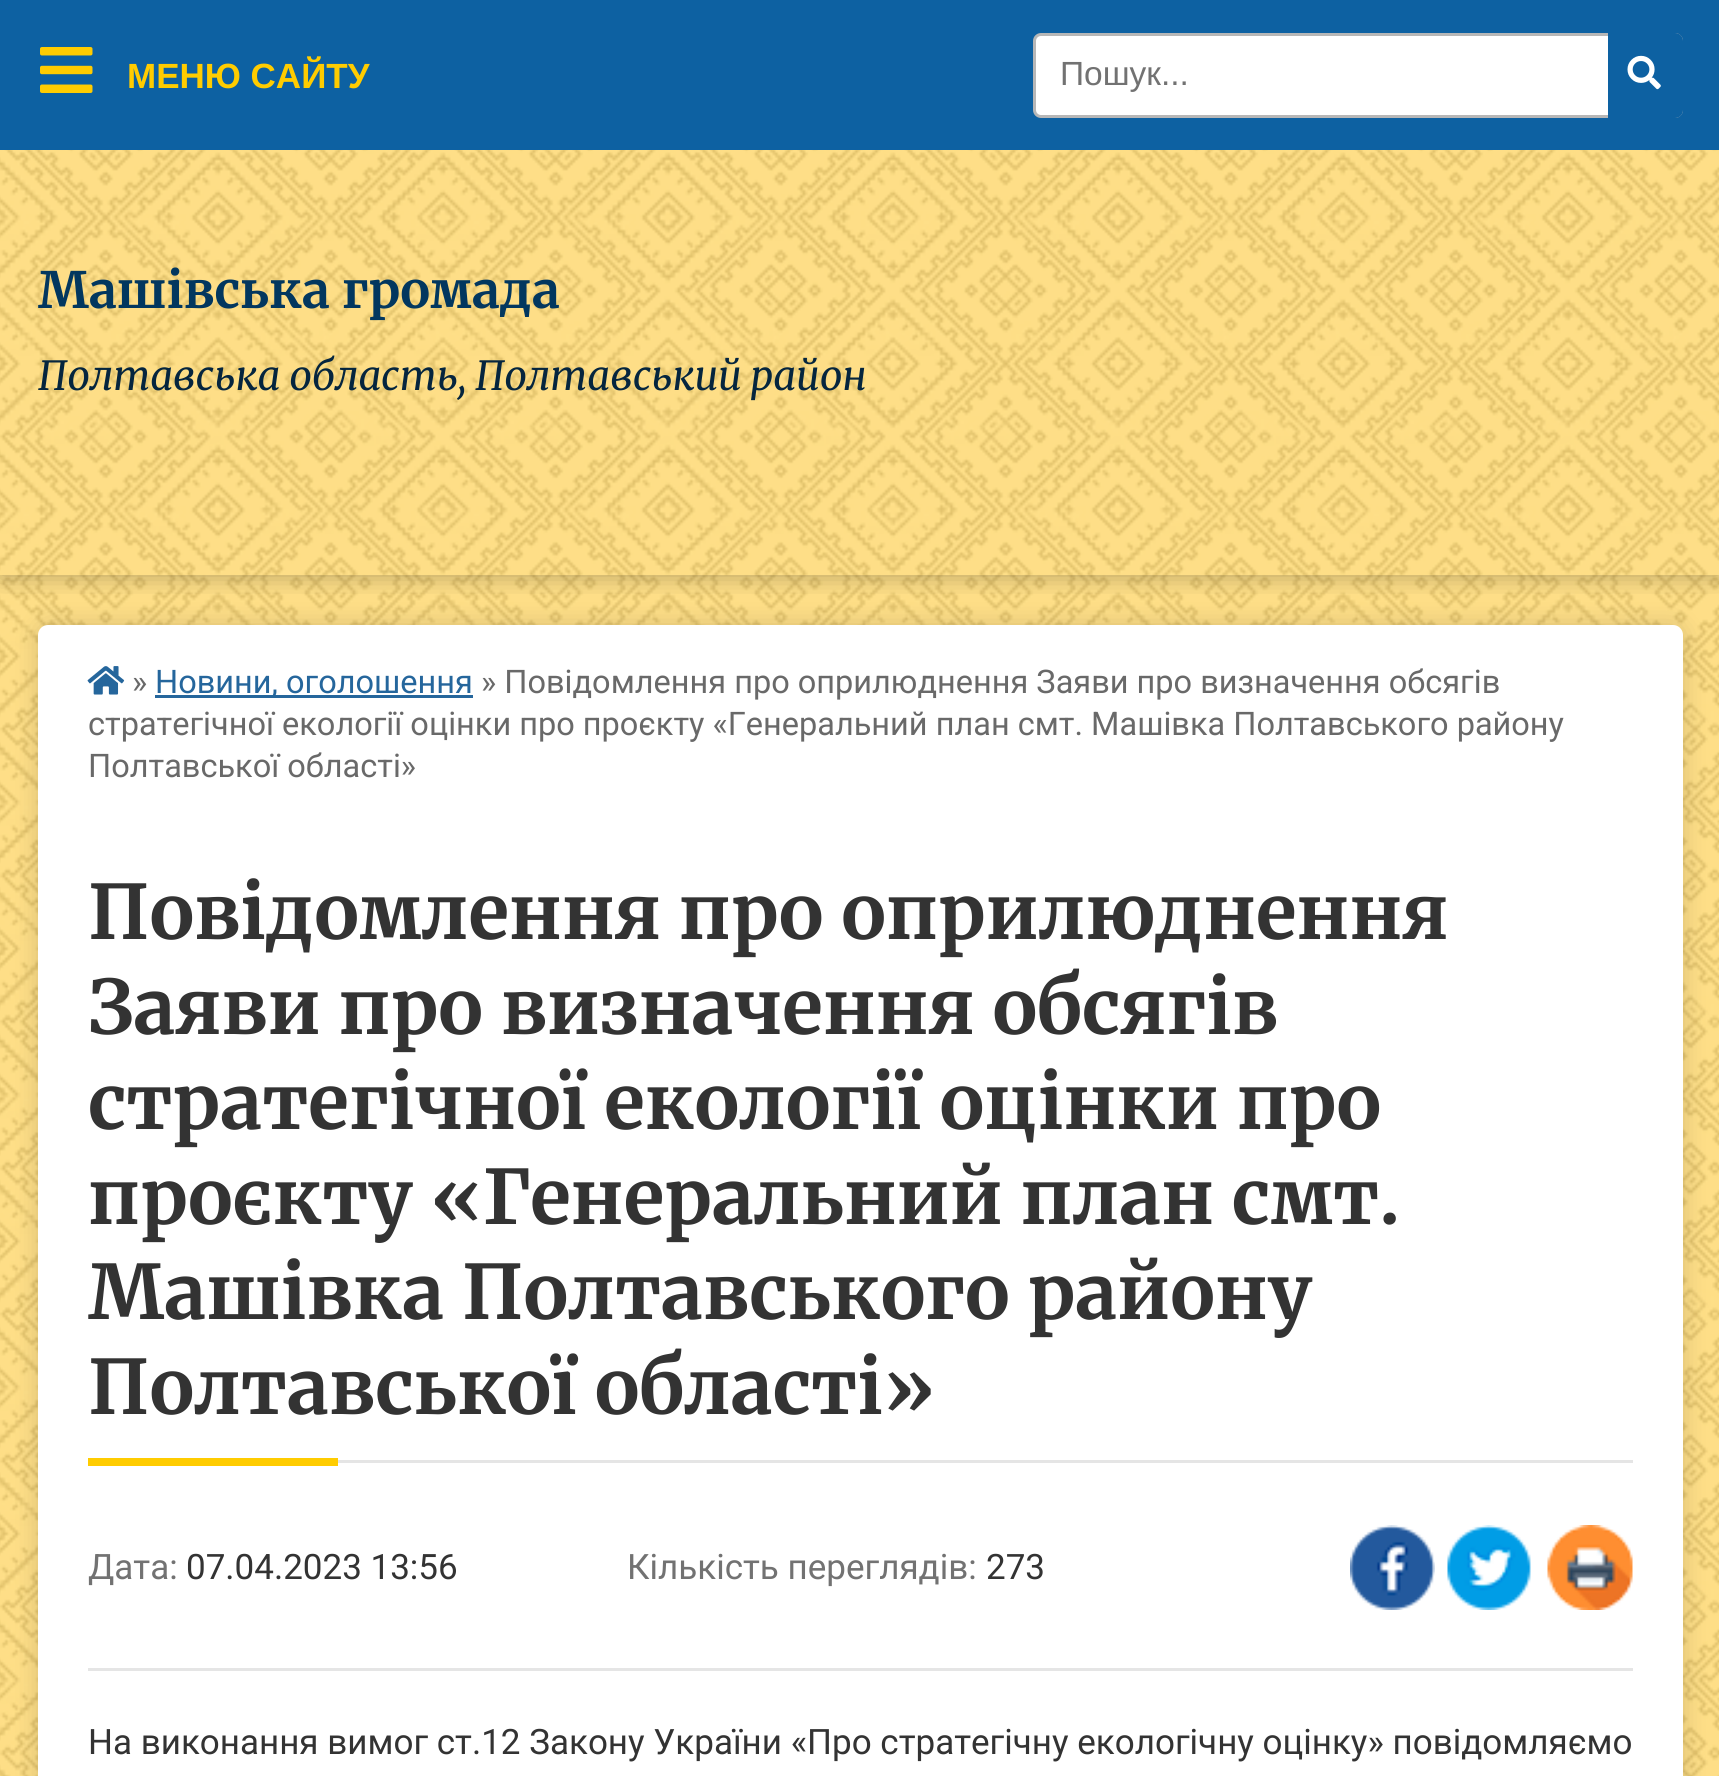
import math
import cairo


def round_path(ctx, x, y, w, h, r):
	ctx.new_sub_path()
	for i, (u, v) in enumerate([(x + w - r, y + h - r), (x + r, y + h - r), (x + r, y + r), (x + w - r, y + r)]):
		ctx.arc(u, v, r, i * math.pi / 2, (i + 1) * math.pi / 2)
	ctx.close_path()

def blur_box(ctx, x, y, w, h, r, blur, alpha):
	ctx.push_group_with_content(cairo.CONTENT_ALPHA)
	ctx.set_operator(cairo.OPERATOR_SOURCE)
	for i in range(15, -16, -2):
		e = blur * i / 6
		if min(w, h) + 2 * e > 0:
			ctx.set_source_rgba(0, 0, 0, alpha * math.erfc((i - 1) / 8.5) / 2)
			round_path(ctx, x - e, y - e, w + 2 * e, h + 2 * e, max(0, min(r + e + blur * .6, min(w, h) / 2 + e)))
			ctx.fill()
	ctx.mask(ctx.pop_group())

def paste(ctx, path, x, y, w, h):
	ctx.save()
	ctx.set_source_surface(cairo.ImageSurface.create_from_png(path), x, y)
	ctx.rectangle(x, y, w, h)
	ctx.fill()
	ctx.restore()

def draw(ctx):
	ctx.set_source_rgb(1, 0.855, 0.459)
	ctx.paint()
	paste(ctx, 'media/1.png', 0, 150, 1719, 1626)
	ctx.set_source_rgb(0, 0, 0)
	blur_box(ctx, 38, 625, 1645, 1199, 10, 12.5, 0.15)
	ctx.set_source_rgb(1, 1, 1)
	round_path(ctx, 38, 625, 1645, 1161, 10)
	ctx.fill()
	ctx.save()
	ctx.rectangle(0, 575, 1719, 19)
	ctx.clip()
	ctx.set_source_rgb(0, 0, 0)
	blur_box(ctx, 0, 150, 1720, 425, 0, 12.5, 0.3)
	ctx.restore()
	ctx.set_source_rgb(0.051, 0.38, 0.635)
	ctx.rectangle(0, 0, 1719, 150)
	ctx.fill()
	paste(ctx, 'media/2.png', 40, 47, 53, 46)
	ctx.select_font_face('Liberation Sans', cairo.FONT_SLANT_NORMAL, cairo.FONT_WEIGHT_BOLD)
	ctx.set_font_size(35)
	ctx.set_source_rgb(1, 0.8, 0)
	ctx.move_to(127, 88)
	ctx.show_text('МЕНЮ САЙТУ')
	paste(ctx, 'media/3.png', 87, 666, 38, 29)
	ctx.select_font_face('Roboto')
	ctx.set_font_size(32.5)
	ctx.set_source_rgb(0.412, 0.412, 0.412)
	ctx.move_to(132, 693)
	ctx.show_text('»')
	ctx.set_source_rgb(0.145, 0.4, 0.612)
	ctx.rectangle(155, 695, 318, 3)
	ctx.fill()
	ctx.move_to(155, 693)
	ctx.show_text('Новини, оголошення')
	ctx.set_source_rgb(0.412, 0.412, 0.412)
	for x, y, s in [
		(481, 693, '» Повідомлення про оприлюднення Заяви про визначення обсягів'),
		(88, 735, 'стратегічної екології оцінки про проєкту «Генеральний план смт. Машівка Полтавського району'),
		(88, 777, 'Полтавської області»'),
	]:
		ctx.move_to(x, y)
		ctx.show_text(s)
	ctx.set_source_rgb(0.898, 0.898, 0.898)
	ctx.rectangle(338, 1460, 1295, 3)
	ctx.fill()
	ctx.select_font_face('Merriweather Light')
	ctx.set_font_size(75)
	ctx.set_source_rgb(0.2, 0.2, 0.2)
	for x, y, s in [
		(88, 939, 'Повідомлення про оприлюднення'),
		(88, 1034, 'Заяви про визначення обсягів'),
		(88, 1129, 'стратегічної екології оцінки про'),
		(88, 1224, 'проєкту «Генеральний план смт.'),
		(88, 1319, 'Машівка Полтавського району'),
		(88, 1414, 'Полтавської області»'),
	]:
		ctx.move_to(x, y)
		ctx.show_text(s)
	ctx.set_source_rgb(1, 0.8, 0)
	ctx.rectangle(88, 1458, 250, 8)
	ctx.fill()
	ctx.select_font_face('Roboto')
	ctx.set_font_size(35)
	ctx.set_source_rgb(0.447, 0.447, 0.447)
	ctx.move_to(88, 1579)
	ctx.show_text('Дата:')
	ctx.set_source_rgb(0.2, 0.2, 0.2)
	ctx.move_to(186, 1579)
	ctx.show_text('07.04.2023 13:56')
	ctx.set_source_rgb(0.447, 0.447, 0.447)
	ctx.move_to(627, 1579)
	ctx.show_text('Кількість переглядів:')
	ctx.set_source_rgb(0.2, 0.2, 0.2)
	ctx.move_to(986, 1579)
	ctx.show_text('273')
	paste(ctx, 'media/4.png', 1350, 1525, 85, 85)
	paste(ctx, 'media/5.png', 1447, 1525, 84, 85)
	paste(ctx, 'media/6.png', 1547, 1525, 86, 85)
	ctx.set_source_rgb(0.898, 0.898, 0.898)
	ctx.rectangle(88, 1668, 1545, 3)
	ctx.fill()
	ctx.set_source_rgb(0.2, 0.2, 0.2)
	ctx.move_to(88, 1754)
	ctx.show_text('На виконання вимог ст.12 Закону України «Про стратегічну екологічну оцінку» повідомляємо')
	ctx.set_source_rgb(1, 1, 1)
	round_path(ctx, 1034.5, 34.5, 647, 82, 6.5)
	ctx.fill_preserve()
	ctx.set_source_rgb(0.718, 0.718, 0.718)
	ctx.set_line_width(3)
	ctx.stroke()
	ctx.select_font_face('Liberation Sans')
	ctx.set_font_size(33.5)
	ctx.set_source_rgb(0.447, 0.447, 0.447)
	ctx.move_to(1060, 85)
	ctx.show_text('Пошук...')
	ctx.set_source_rgb(0.051, 0.38, 0.635)
	ctx.new_path()
	ctx.move_to(1608, 33)
	ctx.line_to(1675, 33)
	ctx.curve_to(1679.5, 33, 1683, 36.5, 1683, 41)
	ctx.line_to(1683, 110)
	ctx.curve_to(1683, 114.5, 1679.5, 118, 1675, 118)
	ctx.line_to(1608, 118)
	ctx.close_path()
	ctx.fill()
	paste(ctx, 'media/7.png', 1627, 55, 34, 35)
	ctx.select_font_face('Merriweather Light')
	ctx.set_font_size(50)
	ctx.set_source_rgb(0.008, 0.216, 0.373)
	ctx.move_to(38, 308)
	ctx.show_text('Машівська громада')
	ctx.select_font_face('Merriweather Light', cairo.FONT_SLANT_ITALIC)
	ctx.set_font_size(40)
	ctx.set_source_rgb(0.02, 0.145, 0.243)
	ctx.move_to(38, 390)
	ctx.show_text('Полтавська область, Полтавський район')


surface = cairo.ImageSurface(cairo.FORMAT_RGB24, 1719, 1776)
ctx = cairo.Context(surface)
options = cairo.FontOptions()
options.set_hint_metrics(cairo.HINT_METRICS_OFF)
options.set_hint_style(cairo.HINT_STYLE_NONE)
ctx.set_font_options(options)
ctx.set_miter_limit(4)
draw(ctx)
surface.write_to_png('image.png')
